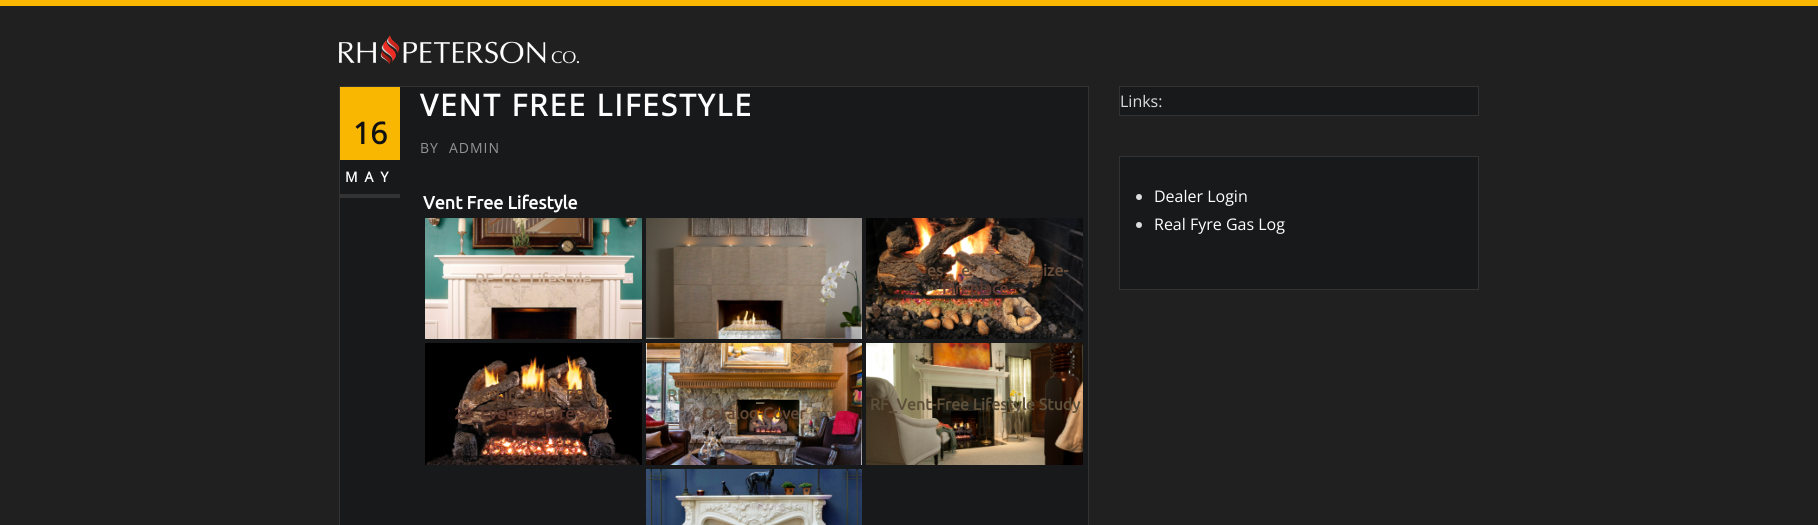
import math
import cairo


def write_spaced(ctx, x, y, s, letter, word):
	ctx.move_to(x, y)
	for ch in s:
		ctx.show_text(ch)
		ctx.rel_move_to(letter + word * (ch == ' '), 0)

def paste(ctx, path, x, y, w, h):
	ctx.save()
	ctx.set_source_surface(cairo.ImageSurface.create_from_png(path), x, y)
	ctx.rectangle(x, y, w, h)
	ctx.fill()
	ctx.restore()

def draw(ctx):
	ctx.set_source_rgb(0.98, 0.718, 0.008)
	ctx.paint()
	ctx.set_source_rgb(0.125, 0.125, 0.125)
	ctx.rectangle(0, 6, 1818, 519)
	ctx.fill()
	paste(ctx, 'media/1.png', 339, 35, 240, 29)
	ctx.set_source_rgb(0.094, 0.098, 0.106)
	ctx.rectangle(339.5, 86.5, 749, 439)
	ctx.fill_preserve()
	ctx.set_source_rgb(0.2, 0.2, 0.2)
	ctx.set_line_width(1)
	ctx.stroke()
	ctx.set_source_rgb(0.98, 0.718, 0.008)
	ctx.rectangle(340, 87, 60, 73)
	ctx.fill()
	ctx.select_font_face('Open Sans', cairo.FONT_SLANT_NORMAL, cairo.FONT_WEIGHT_BOLD)
	ctx.set_font_size(30)
	ctx.set_source_rgb(0.067, 0.067, 0.067)
	ctx.move_to(353, 144)
	ctx.show_text('16')
	ctx.set_source_rgb(0.2, 0.2, 0.2)
	ctx.rectangle(340, 194, 60, 4)
	ctx.fill()
	ctx.set_font_size(14)
	ctx.set_source_rgb(1, 1, 1)
	write_spaced(ctx, 345, 182, 'MAY', 7, 0)
	ctx.set_font_size(30)
	write_spaced(ctx, 420, 116, 'VENT FREE LIFESTYLE', 2, 0)
	ctx.select_font_face('Open Sans')
	ctx.set_font_size(14)
	ctx.set_source_rgb(0.584, 0.584, 0.584)
	write_spaced(ctx, 420, 153, 'BY', 1, 0)
	write_spaced(ctx, 449, 153, 'ADMIN', 1, 0)
	ctx.select_font_face('Ubuntu', cairo.FONT_SLANT_NORMAL, cairo.FONT_WEIGHT_BOLD)
	ctx.set_font_size(18)
	ctx.set_source_rgb(1, 1, 1)
	ctx.move_to(423, 209)
	ctx.show_text('Vent Free Lifestyle')
	paste(ctx, 'media/2.png', 425, 218, 217, 121)
	ctx.set_font_size(16)
	ctx.set_source_rgb(0.82, 0.725, 0.647)
	ctx.move_to(475, 285)
	ctx.show_text('RF_G9_Lifestyle')
	paste(ctx, 'media/3.png', 646, 218, 216, 121)
	paste(ctx, 'media/4.png', 866, 218, 217, 121)
	ctx.set_source_rgb(0.412, 0.306, 0.231)
	for x, y, s in [
		(927, 276, 'es'),
		(961, 276, 'e'),
		(989, 276, 'c'),
		(1043, 276, 'ize-'),
	]:
		ctx.move_to(x, y)
		ctx.show_text(s)
	ctx.set_source_rgb(0.373, 0.227, 0.188)
	ctx.move_to(942, 294)
	ctx.show_text('Fireplace')
	paste(ctx, 'media/5.png', 425, 343, 217, 122)
	ctx.set_source_rgb(0.384, 0.271, 0.2)
	ctx.move_to(469, 401)
	ctx.show_text('RF_Lifestyle_ESV-')
	ctx.set_source_rgb(0.373, 0.227, 0.188)
	ctx.move_to(454, 419)
	ctx.show_text('24_Evening-Fyre-Split')
	paste(ctx, 'media/6.png', 646, 343, 216, 122)
	ctx.set_source_rgb(0.451, 0.408, 0.318)
	ctx.move_to(667, 401)
	ctx.show_text('RF_')
	ctx.move_to(756, 401)
	ctx.show_text('_')
	ctx.set_source_rgb(0.384, 0.271, 0.2)
	ctx.move_to(702, 419)
	ctx.show_text('Catalog-Cover')
	paste(ctx, 'media/7.png', 866, 343, 217, 122)
	ctx.set_source_rgb(0.365, 0.31, 0.224)
	ctx.move_to(870, 410)
	ctx.show_text('RF_Vent-Free Lifestyle Study')
	paste(ctx, 'media/8.png', 646, 469, 216, 56)
	ctx.set_source_rgb(0.094, 0.098, 0.106)
	ctx.rectangle(1119.5, 86.5, 359, 29)
	ctx.fill_preserve()
	ctx.set_source_rgb(0.2, 0.2, 0.2)
	ctx.stroke()
	ctx.select_font_face('Open Sans')
	ctx.set_source_rgb(0.867, 0.867, 0.867)
	ctx.move_to(1120, 107)
	ctx.show_text('Links:')
	ctx.set_source_rgb(0.094, 0.098, 0.106)
	ctx.rectangle(1119.5, 156.5, 359, 133)
	ctx.fill_preserve()
	ctx.set_source_rgb(0.2, 0.2, 0.2)
	ctx.stroke()
	ctx.set_source_rgb(0.867, 0.867, 0.867)
	ctx.arc(1139, 197, 3, 0, 2 * math.pi)
	ctx.fill()
	ctx.set_source_rgb(1, 1, 1)
	ctx.move_to(1154, 202)
	ctx.show_text('Dealer Login')
	ctx.set_source_rgb(0.867, 0.867, 0.867)
	ctx.new_path()
	ctx.arc(1139, 225, 3, 0, 2 * math.pi)
	ctx.fill()
	ctx.set_source_rgb(1, 1, 1)
	ctx.move_to(1154, 230)
	ctx.show_text('Real Fyre Gas Log')


surface = cairo.ImageSurface(cairo.FORMAT_RGB24, 1818, 525)
ctx = cairo.Context(surface)
options = cairo.FontOptions()
options.set_hint_metrics(cairo.HINT_METRICS_OFF)
options.set_hint_style(cairo.HINT_STYLE_NONE)
ctx.set_font_options(options)
ctx.set_miter_limit(4)
draw(ctx)
surface.write_to_png('image.png')
